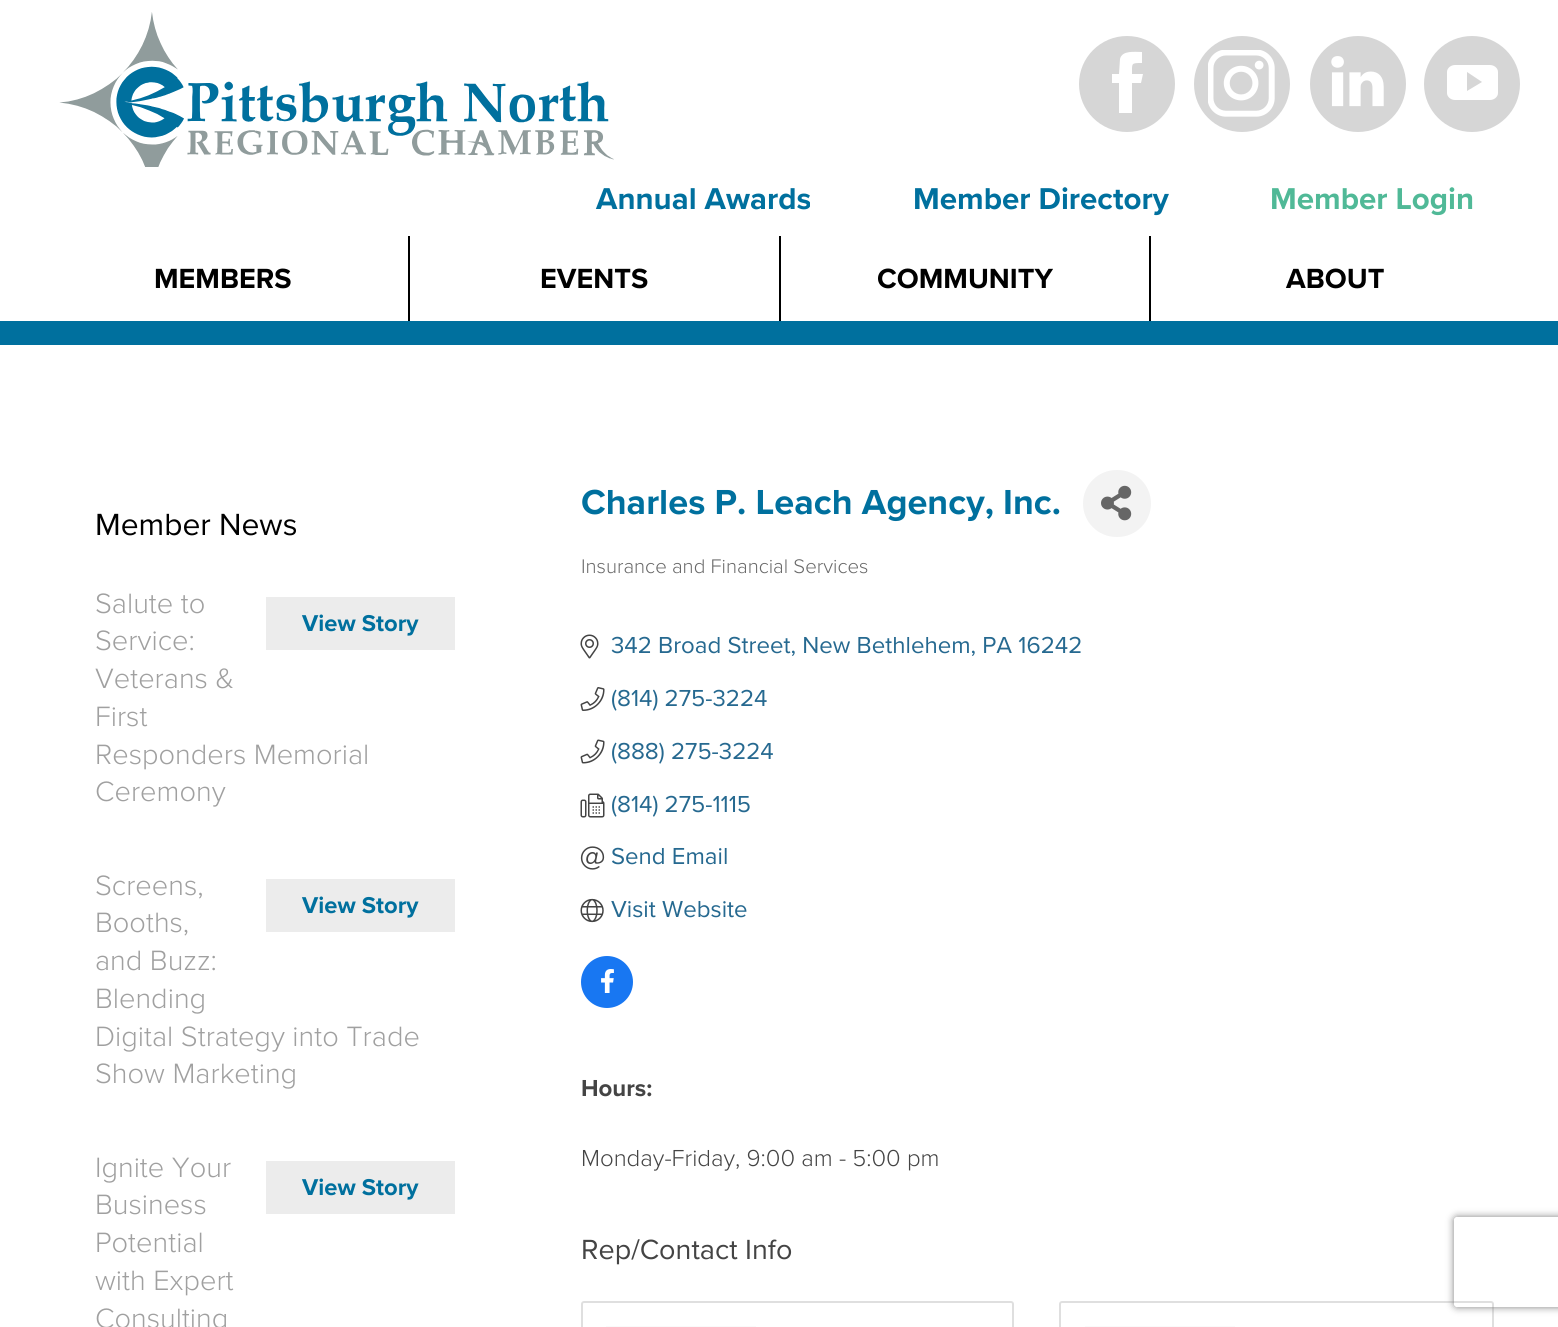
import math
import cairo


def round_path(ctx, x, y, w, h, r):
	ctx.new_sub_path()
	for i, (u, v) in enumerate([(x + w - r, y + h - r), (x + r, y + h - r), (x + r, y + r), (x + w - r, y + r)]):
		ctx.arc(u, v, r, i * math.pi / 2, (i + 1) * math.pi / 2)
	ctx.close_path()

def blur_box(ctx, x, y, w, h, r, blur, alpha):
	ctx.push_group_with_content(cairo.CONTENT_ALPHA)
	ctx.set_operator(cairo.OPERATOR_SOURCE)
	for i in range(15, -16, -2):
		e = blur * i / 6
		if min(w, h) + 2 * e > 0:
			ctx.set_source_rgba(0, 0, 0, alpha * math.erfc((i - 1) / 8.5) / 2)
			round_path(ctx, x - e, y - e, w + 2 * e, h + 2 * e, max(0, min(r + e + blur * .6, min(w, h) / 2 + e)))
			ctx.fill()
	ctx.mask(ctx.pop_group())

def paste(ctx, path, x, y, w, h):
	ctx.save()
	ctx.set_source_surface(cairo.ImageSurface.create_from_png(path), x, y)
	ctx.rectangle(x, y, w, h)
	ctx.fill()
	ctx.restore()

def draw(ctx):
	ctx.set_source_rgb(1, 1, 1)
	ctx.paint()
	paste(ctx, 'media/1.png', 59, 12, 555, 155)
	ctx.set_source_rgb(0.839, 0.839, 0.839)
	ctx.arc(1127, 84, 48, 0, 2 * math.pi)
	ctx.fill()
	ctx.set_source_rgb(1, 1, 1)
	ctx.new_path()
	ctx.move_to(1143, 74)
	ctx.line_to(1132, 74)
	ctx.curve_to(1132, 63, 1131, 63, 1142, 63)
	ctx.line_to(1142, 52)
	ctx.curve_to(1135, 52, 1122, 50, 1120, 59)
	ctx.line_to(1119, 74)
	ctx.line_to(1112, 74)
	ctx.line_to(1112, 83)
	ctx.line_to(1119, 83)
	ctx.line_to(1119, 113)
	ctx.line_to(1132, 113)
	ctx.line_to(1132, 83)
	ctx.line_to(1141, 83)
	ctx.close_path()
	ctx.fill()
	ctx.set_source_rgb(0.839, 0.839, 0.839)
	ctx.arc(1242, 84, 48, 0, 2 * math.pi)
	ctx.fill()
	paste(ctx, 'media/2.png', 1208, 50, 67, 67)
	ctx.arc(1358, 84, 48, 0, 2 * math.pi)
	ctx.fill()
	paste(ctx, 'media/3.png', 1331, 56, 53, 51)
	ctx.arc(1472, 84, 48, 0, 2 * math.pi)
	ctx.fill()
	ctx.set_source_rgb(1, 1, 1)
	ctx.new_path()
	ctx.move_to(1498, 72)
	ctx.curve_to(1498, 68, 1494, 65, 1490, 65)
	ctx.line_to(1455, 65)
	ctx.curve_to(1451, 65, 1447, 68, 1447, 72)
	ctx.line_to(1447, 93)
	ctx.curve_to(1447, 97, 1451, 100, 1455, 100)
	ctx.line_to(1490, 100)
	ctx.curve_to(1494, 100, 1498, 97, 1498, 93)
	ctx.close_path()
	ctx.move_to(1467, 91)
	ctx.line_to(1467, 72)
	ctx.line_to(1482, 82)
	ctx.close_path()
	ctx.fill()
	ctx.select_font_face('Proxima Nova', cairo.FONT_SLANT_NORMAL, cairo.FONT_WEIGHT_BOLD)
	ctx.set_font_size(31.25)
	ctx.set_source_rgb(0, 0.439, 0.62)
	ctx.move_to(596, 209)
	ctx.show_text('Annual Awards')
	ctx.move_to(913, 209)
	ctx.show_text('Member Directory')
	ctx.set_source_rgb(0.314, 0.725, 0.592)
	ctx.move_to(1270, 209)
	ctx.show_text('Member Login')
	ctx.set_source_rgb(0, 0, 0)
	ctx.rectangle(408, 236, 2, 85)
	ctx.fill()
	ctx.set_font_size(28.75)
	ctx.move_to(154, 288)
	ctx.show_text('MEMBERS')
	ctx.rectangle(779, 236, 2, 85)
	ctx.fill()
	ctx.move_to(540, 288)
	ctx.show_text('EVENTS')
	ctx.rectangle(1149, 236, 2, 85)
	ctx.fill()
	ctx.move_to(877, 288)
	ctx.show_text('COMMUNITY')
	ctx.move_to(1286, 288)
	ctx.show_text('ABOUT')
	ctx.set_source_rgb(0, 0.439, 0.62)
	ctx.rectangle(0, 321, 1558, 24)
	ctx.fill()
	ctx.select_font_face('Proxima Nova')
	ctx.set_font_size(31.75)
	ctx.set_source_rgb(0, 0, 0)
	ctx.move_to(95, 535)
	ctx.show_text('Member News')
	ctx.select_font_face('Proxima Nova Light')
	ctx.set_font_size(29)
	ctx.set_source_rgb(0.627, 0.627, 0.627)
	for x, y, s in [
		(95, 613, 'Salute to'),
		(95, 650, 'Service:'),
		(95, 688, 'Veterans &'),
		(95, 726, 'First'),
		(95, 764, 'Responders Memorial'),
		(95, 801, 'Ceremony'),
	]:
		ctx.move_to(x, y)
		ctx.show_text(s)
	ctx.set_source_rgb(0.925, 0.925, 0.925)
	ctx.rectangle(266, 597, 189, 53)
	ctx.fill()
	ctx.select_font_face('Proxima Nova', cairo.FONT_SLANT_NORMAL, cairo.FONT_WEIGHT_BOLD)
	ctx.set_font_size(23.75)
	ctx.set_source_rgb(0, 0.439, 0.62)
	ctx.move_to(302, 631)
	ctx.show_text('View Story')
	ctx.select_font_face('Proxima Nova Light')
	ctx.set_font_size(29)
	ctx.set_source_rgb(0.627, 0.627, 0.627)
	for x, y, s in [
		(95, 895, 'Screens,'),
		(95, 932, 'Booths,'),
		(95, 970, 'and Buzz:'),
		(95, 1008, 'Blending'),
		(95, 1046, 'Digital Strategy into Trade'),
		(95, 1083, 'Show Marketing'),
	]:
		ctx.move_to(x, y)
		ctx.show_text(s)
	ctx.set_source_rgb(0.925, 0.925, 0.925)
	ctx.rectangle(266, 879, 189, 53)
	ctx.fill()
	ctx.select_font_face('Proxima Nova', cairo.FONT_SLANT_NORMAL, cairo.FONT_WEIGHT_BOLD)
	ctx.set_font_size(23.75)
	ctx.set_source_rgb(0, 0.439, 0.62)
	ctx.move_to(302, 913)
	ctx.show_text('View Story')
	ctx.select_font_face('Proxima Nova Light')
	ctx.set_font_size(29)
	ctx.set_source_rgb(0.627, 0.627, 0.627)
	for x, y, s in [
		(95, 1177, 'Ignite Your'),
		(95, 1214, 'Business'),
		(95, 1252, 'Potential'),
		(95, 1290, 'with Expert'),
		(95, 1328, 'Consulting'),
	]:
		ctx.move_to(x, y)
		ctx.show_text(s)
	ctx.set_source_rgb(0.925, 0.925, 0.925)
	ctx.rectangle(266, 1161, 189, 53)
	ctx.fill()
	ctx.select_font_face('Proxima Nova', cairo.FONT_SLANT_NORMAL, cairo.FONT_WEIGHT_BOLD)
	ctx.set_font_size(23.75)
	ctx.set_source_rgb(0, 0.439, 0.62)
	ctx.move_to(302, 1195)
	ctx.show_text('View Story')
	ctx.set_font_size(36)
	ctx.move_to(581, 514)
	ctx.show_text('Charles P. Leach Agency, Inc.')
	ctx.set_source_rgb(0.953, 0.953, 0.953)
	round_path(ctx, 1083, 470, 68, 67, 33.5)
	ctx.fill()
	paste(ctx, 'media/4.png', 1101, 485, 31, 36)
	ctx.select_font_face('Proxima Nova Light')
	ctx.set_font_size(20.4)
	ctx.set_source_rgb(0.412, 0.412, 0.412)
	ctx.move_to(581, 573)
	ctx.show_text('Insurance and Financial Services')
	paste(ctx, 'media/5.png', 580, 634, 19, 25)
	ctx.select_font_face('Proxima Nova')
	ctx.set_font_size(24)
	ctx.set_source_rgb(0.149, 0.412, 0.565)
	ctx.move_to(611, 653)
	ctx.show_text('342 Broad Street, New Bethlehem, PA 16242')
	paste(ctx, 'media/6.png', 580, 687, 25, 24)
	ctx.move_to(611, 706)
	ctx.show_text('(814) 275-3224')
	paste(ctx, 'media/7.png', 580, 739, 25, 25)
	ctx.move_to(611, 759)
	ctx.show_text('(888) 275-3224')
	paste(ctx, 'media/8.png', 580, 793, 25, 25)
	ctx.move_to(611, 812)
	ctx.show_text('(814) 275-1115')
	paste(ctx, 'media/9.png', 580, 846, 25, 24)
	ctx.move_to(611, 864)
	ctx.show_text('Send Email')
	paste(ctx, 'media/10.png', 580, 898, 24, 25)
	ctx.move_to(611, 917)
	ctx.show_text('Visit Website')
	ctx.set_source_rgb(0.094, 0.467, 0.949)
	ctx.new_path()
	ctx.arc(607, 982, 26, 0, 2 * math.pi)
	ctx.fill()
	paste(ctx, 'media/11.png', 601, 969, 13, 24)
	ctx.select_font_face('Proxima Nova', cairo.FONT_SLANT_NORMAL, cairo.FONT_WEIGHT_BOLD)
	ctx.set_source_rgb(0.267, 0.267, 0.267)
	ctx.move_to(581, 1096)
	ctx.show_text('Hours:')
	ctx.select_font_face('Proxima Nova Light')
	ctx.move_to(581, 1166)
	ctx.show_text('Monday-Friday, 9:00 am - 5:00 pm')
	ctx.select_font_face('Proxima Nova')
	ctx.set_font_size(28.75)
	ctx.move_to(581, 1259)
	ctx.show_text('Rep/Contact Info')
	round_path(ctx, 582, 1302, 431, 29, 2)
	ctx.set_source_rgb(0.875, 0.875, 0.875)
	ctx.stroke()
	ctx.set_source_rgb(0.98, 0.98, 0.98)
	ctx.rectangle(606, 1326, 150, 1)
	ctx.fill()
	round_path(ctx, 1060, 1302, 433, 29, 2)
	ctx.set_source_rgb(0.875, 0.875, 0.875)
	ctx.stroke()
	ctx.set_source_rgb(0.98, 0.98, 0.98)
	ctx.rectangle(1085, 1326, 150, 1)
	ctx.fill()
	ctx.save()
	ctx.set_fill_rule(cairo.FILL_RULE_EVEN_ODD)
	ctx.new_path()
	ctx.move_to(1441, 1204)
	ctx.line_to(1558, 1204)
	ctx.line_to(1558, 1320)
	ctx.line_to(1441, 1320)
	ctx.close_path()
	ctx.move_to(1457, 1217)
	ctx.line_to(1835, 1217)
	ctx.curve_to(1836.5, 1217, 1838, 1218.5, 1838, 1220)
	ctx.line_to(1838, 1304)
	ctx.curve_to(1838, 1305.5, 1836.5, 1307, 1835, 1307)
	ctx.line_to(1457, 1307)
	ctx.curve_to(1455.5, 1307, 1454, 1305.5, 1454, 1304)
	ctx.line_to(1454, 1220)
	ctx.curve_to(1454, 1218.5, 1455.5, 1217, 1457, 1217)
	ctx.close_path()
	ctx.clip()
	ctx.set_source_rgb(0.502, 0.502, 0.502)
	blur_box(ctx, 1454, 1217, 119, 90, 3, 4, 1)
	ctx.restore()


surface = cairo.ImageSurface(cairo.FORMAT_RGB24, 1558, 1327)
ctx = cairo.Context(surface)
options = cairo.FontOptions()
options.set_hint_metrics(cairo.HINT_METRICS_OFF)
options.set_hint_style(cairo.HINT_STYLE_NONE)
ctx.set_font_options(options)
ctx.set_miter_limit(4)
draw(ctx)
surface.write_to_png('image.png')
